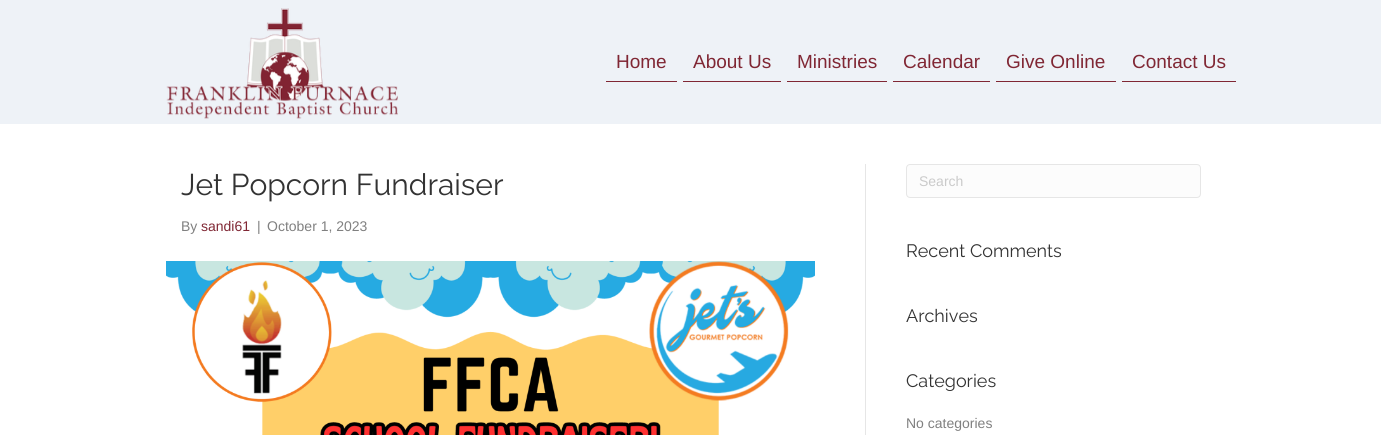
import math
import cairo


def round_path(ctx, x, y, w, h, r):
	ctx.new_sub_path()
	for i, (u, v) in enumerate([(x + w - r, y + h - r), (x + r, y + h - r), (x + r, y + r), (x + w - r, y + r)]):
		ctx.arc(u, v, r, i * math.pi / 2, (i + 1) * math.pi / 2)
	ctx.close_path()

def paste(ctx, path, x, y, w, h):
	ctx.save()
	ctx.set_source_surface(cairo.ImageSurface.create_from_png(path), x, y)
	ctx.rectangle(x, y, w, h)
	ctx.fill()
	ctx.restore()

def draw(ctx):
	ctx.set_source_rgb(1, 1, 1)
	ctx.paint()
	ctx.set_source_rgb(0.933, 0.949, 0.965)
	ctx.rectangle(0, 0, 1381, 124)
	ctx.fill()
	paste(ctx, 'media/1.png', 166, 8, 232, 111)
	ctx.set_source_rgb(0.502, 0.153, 0.204)
	ctx.rectangle(606, 81, 71, 1)
	ctx.fill()
	ctx.select_font_face('Liberation Sans')
	ctx.set_font_size(19)
	ctx.move_to(616, 68)
	ctx.show_text('Home')
	ctx.rectangle(683, 81, 98, 1)
	ctx.fill()
	ctx.move_to(693, 68)
	ctx.show_text('About Us')
	ctx.rectangle(787, 81, 100, 1)
	ctx.fill()
	ctx.move_to(797, 68)
	ctx.show_text('Ministries')
	ctx.rectangle(893, 81, 97, 1)
	ctx.fill()
	ctx.move_to(903, 68)
	ctx.show_text('Calendar')
	ctx.rectangle(996, 81, 120, 1)
	ctx.fill()
	ctx.move_to(1006, 68)
	ctx.show_text('Give Online')
	ctx.rectangle(1122, 81, 114, 1)
	ctx.fill()
	ctx.move_to(1132, 68)
	ctx.show_text('Contact Us')
	ctx.set_source_rgb(0.902, 0.902, 0.902)
	ctx.rectangle(865, 164, 1, 271)
	ctx.fill()
	ctx.select_font_face('Raleway')
	ctx.set_font_size(30)
	ctx.set_source_rgb(0.2, 0.2, 0.2)
	ctx.move_to(181, 195)
	ctx.show_text('Jet Popcorn Fundraiser')
	ctx.select_font_face('Liberation Sans')
	ctx.set_font_size(14)
	ctx.set_source_rgb(0.502, 0.502, 0.502)
	ctx.move_to(181, 231)
	ctx.show_text('By')
	ctx.set_source_rgb(0.502, 0.153, 0.204)
	ctx.move_to(201, 231)
	ctx.show_text('sandi61')
	ctx.set_source_rgb(0.502, 0.502, 0.502)
	ctx.move_to(257, 231)
	ctx.show_text('|')
	ctx.move_to(267, 231)
	ctx.show_text('October 1, 2023')
	paste(ctx, 'media/2.png', 166, 261, 649, 174)
	ctx.set_source_rgb(0.988, 0.988, 0.988)
	round_path(ctx, 906.5, 164.5, 294, 33, 3.5)
	ctx.fill_preserve()
	ctx.set_source_rgb(0.902, 0.902, 0.902)
	ctx.set_line_width(1)
	ctx.stroke()
	ctx.set_source_rgb(0.792, 0.792, 0.792)
	ctx.move_to(919, 186)
	ctx.show_text('Search')
	ctx.select_font_face('Raleway')
	ctx.set_font_size(18)
	ctx.set_source_rgb(0.2, 0.2, 0.2)
	for x, y, s in [
		(906, 257, 'Recent Comments'),
		(906, 322, 'Archives'),
		(906, 387, 'Categories'),
	]:
		ctx.move_to(x, y)
		ctx.show_text(s)
	ctx.select_font_face('Liberation Sans')
	ctx.set_font_size(14)
	ctx.set_source_rgb(0.502, 0.502, 0.502)
	ctx.move_to(906, 428)
	ctx.show_text('No categories')


surface = cairo.ImageSurface(cairo.FORMAT_RGB24, 1381, 435)
ctx = cairo.Context(surface)
options = cairo.FontOptions()
options.set_hint_metrics(cairo.HINT_METRICS_OFF)
options.set_hint_style(cairo.HINT_STYLE_NONE)
ctx.set_font_options(options)
ctx.set_miter_limit(4)
draw(ctx)
surface.write_to_png('image.png')
